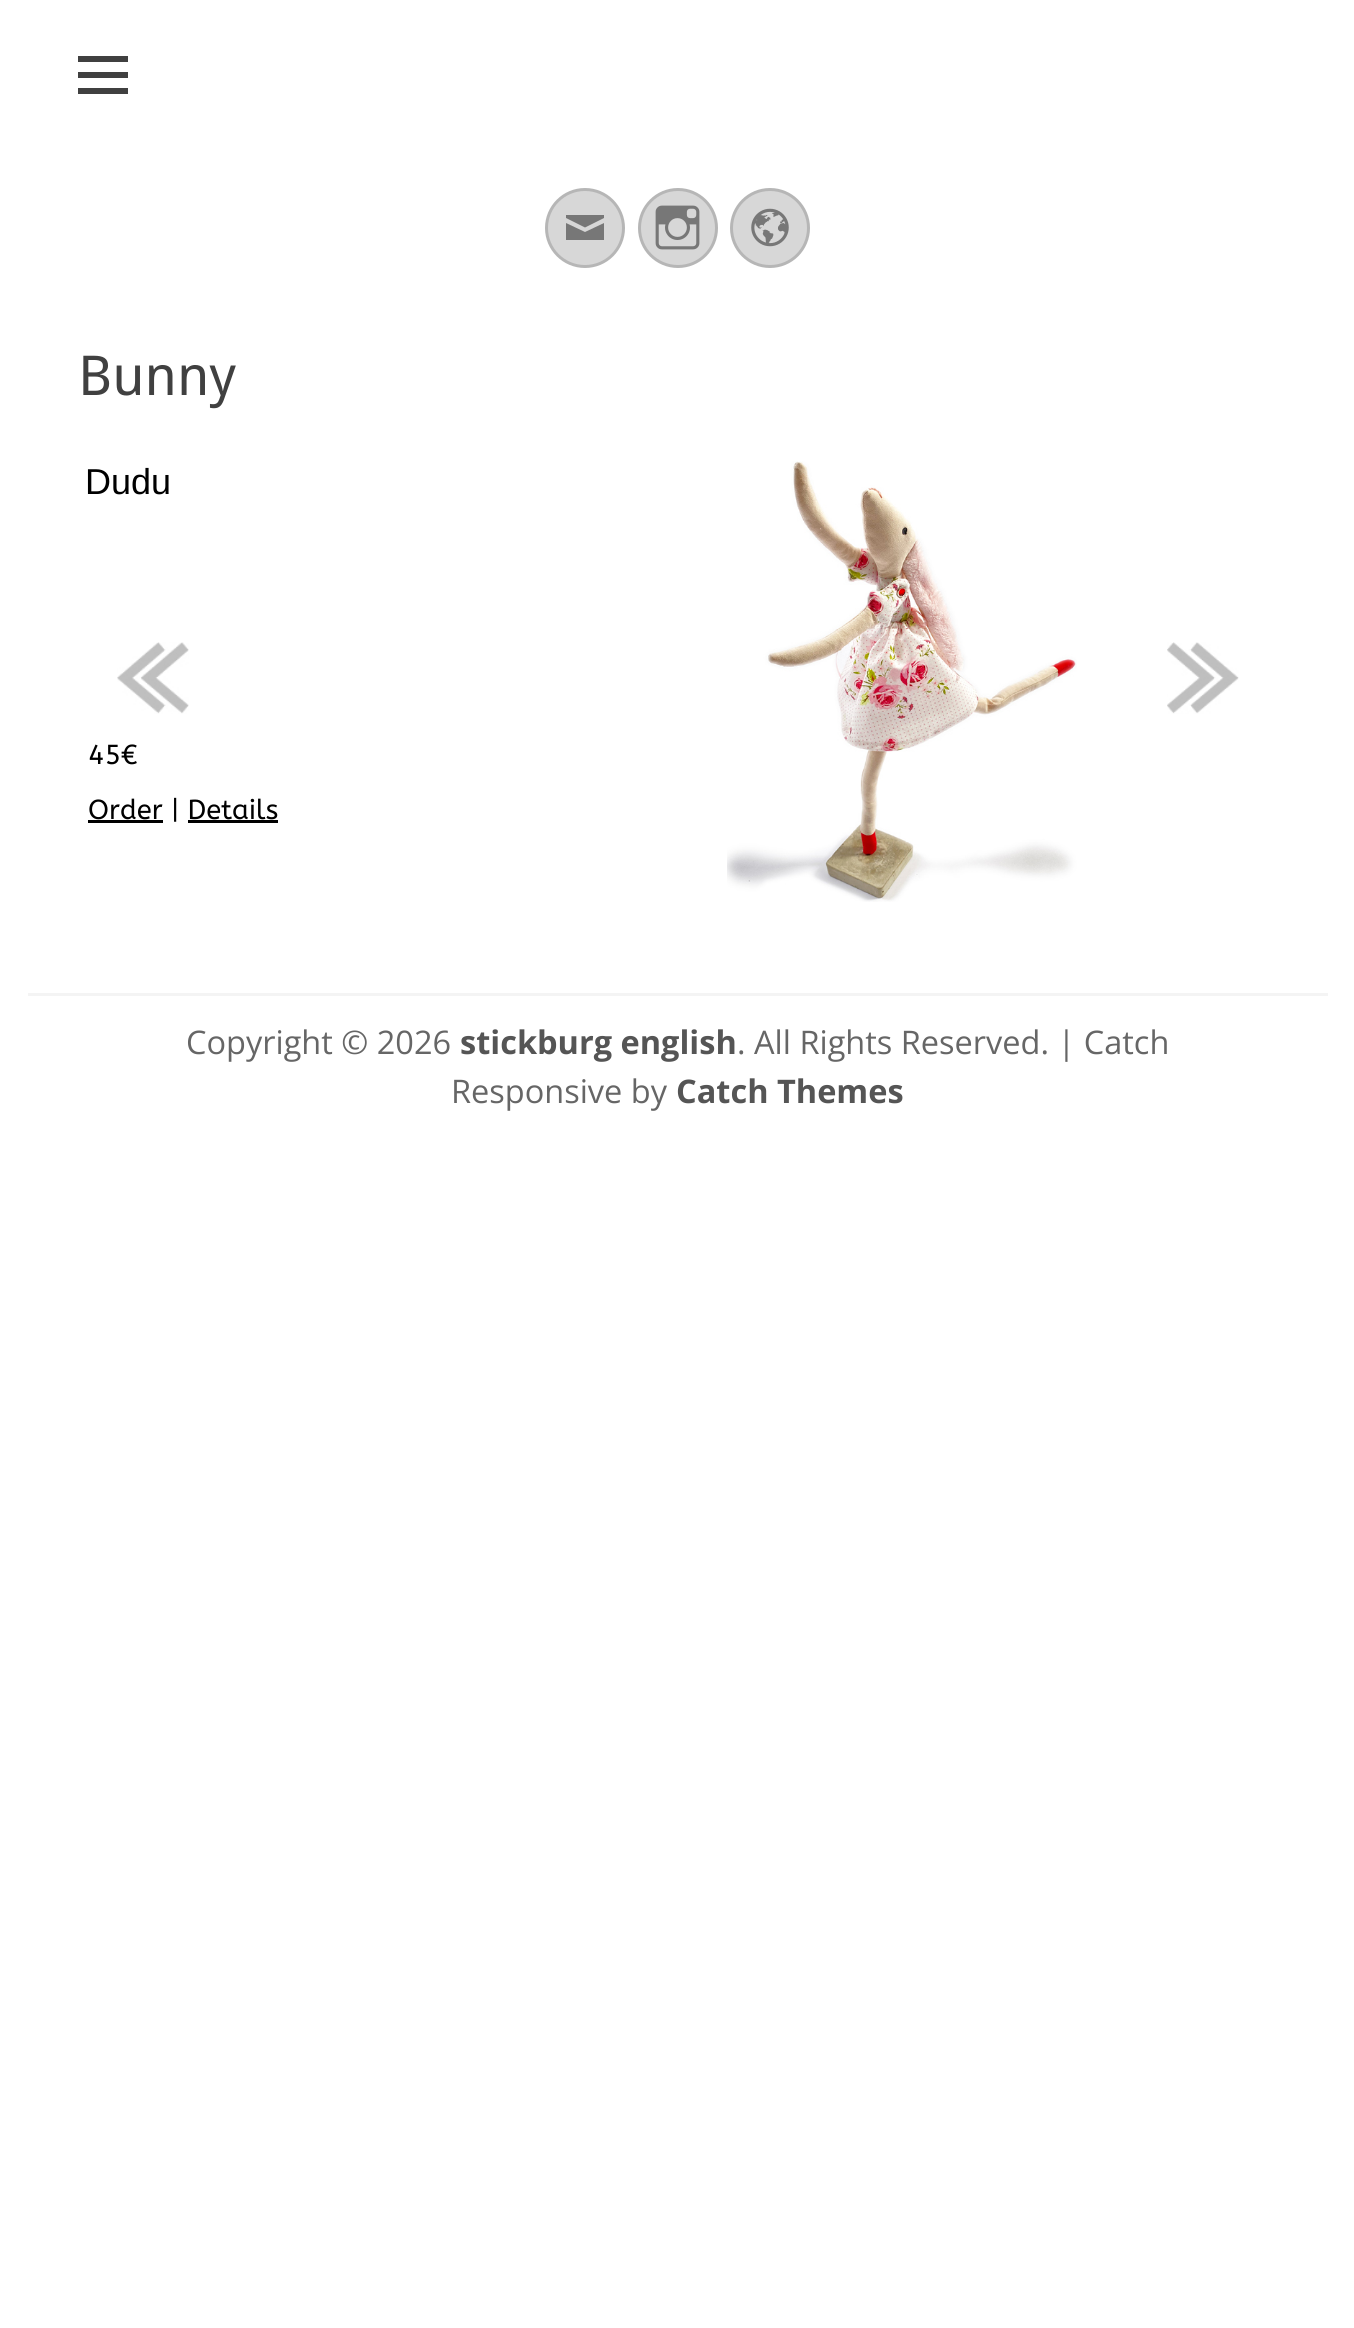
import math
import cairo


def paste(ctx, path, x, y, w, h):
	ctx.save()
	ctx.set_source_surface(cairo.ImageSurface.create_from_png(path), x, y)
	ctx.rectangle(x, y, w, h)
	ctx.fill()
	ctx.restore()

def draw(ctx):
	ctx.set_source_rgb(1, 1, 1)
	ctx.paint()
	ctx.set_source_rgb(0.251, 0.251, 0.251)
	ctx.new_path()
	ctx.move_to(78, 94)
	ctx.line_to(78, 88)
	ctx.line_to(128, 88)
	ctx.line_to(128, 94)
	ctx.close_path()
	ctx.move_to(78, 56)
	ctx.line_to(128, 56)
	ctx.line_to(128, 62)
	ctx.line_to(78, 62)
	ctx.close_path()
	ctx.move_to(78, 78)
	ctx.line_to(78, 72)
	ctx.line_to(128, 72)
	ctx.line_to(128, 78)
	ctx.close_path()
	ctx.fill()
	ctx.set_source_rgb(0.843, 0.843, 0.843)
	ctx.arc(585, 228, 38.5, 0, 2 * math.pi)
	ctx.fill_preserve()
	ctx.set_source_rgb(0.714, 0.714, 0.714)
	ctx.set_line_width(3)
	ctx.stroke()
	ctx.set_source_rgb(0.467, 0.467, 0.467)
	ctx.new_path()
	ctx.move_to(566, 215)
	ctx.line_to(604, 215)
	ctx.line_to(604, 218)
	ctx.line_to(585, 227.5)
	ctx.line_to(566, 218)
	ctx.close_path()
	ctx.move_to(566, 223)
	ctx.line_to(585, 232)
	ctx.line_to(604, 223)
	ctx.line_to(604, 240)
	ctx.line_to(566, 240)
	ctx.close_path()
	ctx.fill()
	ctx.set_source_rgb(0.843, 0.843, 0.843)
	ctx.arc(678, 228, 38.5, 0, 2 * math.pi)
	ctx.fill_preserve()
	ctx.set_source_rgb(0.714, 0.714, 0.714)
	ctx.stroke()
	paste(ctx, 'media/1.png', 655, 205, 45, 45)
	ctx.set_source_rgb(0.843, 0.843, 0.843)
	ctx.arc(770, 228, 38.5, 0, 2 * math.pi)
	ctx.fill_preserve()
	ctx.set_source_rgb(0.714, 0.714, 0.714)
	ctx.stroke()
	paste(ctx, 'media/2.png', 751, 208, 38, 39)
	ctx.select_font_face('Droid Sans')
	ctx.set_font_size(55)
	ctx.set_source_rgb(0.251, 0.251, 0.251)
	ctx.move_to(78, 395)
	ctx.show_text('Bunny')
	paste(ctx, 'media/3.png', 727, 461, 350, 441)
	ctx.select_font_face('Liberation Sans')
	ctx.set_font_size(36)
	ctx.set_source_rgb(0, 0, 0)
	ctx.move_to(85, 494)
	ctx.show_text('Dudu')
	ctx.select_font_face('ABeeZee')
	ctx.set_font_size(27.5)
	ctx.move_to(88, 764)
	ctx.show_text('45€')
	ctx.rectangle(88, 820, 75, 3)
	ctx.fill()
	ctx.move_to(88, 819)
	ctx.show_text('Order | Details')
	ctx.rectangle(188, 820, 90, 3)
	ctx.fill()
	paste(ctx, 'media/4.png', 117, 642, 72, 72)
	paste(ctx, 'media/5.png', 1167, 642, 72, 72)
	ctx.set_source_rgb(0.957, 0.957, 0.957)
	ctx.rectangle(28, 993, 1300, 3)
	ctx.fill()
	ctx.select_font_face('Open Sans')
	ctx.set_font_size(32.5)
	ctx.set_source_rgb(0.4, 0.4, 0.4)
	ctx.move_to(186, 1054)
	ctx.show_text('Copyright © 2026')
	ctx.select_font_face('Open Sans', cairo.FONT_SLANT_NORMAL, cairo.FONT_WEIGHT_BOLD)
	ctx.set_source_rgb(0.333, 0.333, 0.333)
	ctx.move_to(460, 1054)
	ctx.show_text('stickburg english')
	ctx.select_font_face('Open Sans')
	ctx.set_source_rgb(0.4, 0.4, 0.4)
	ctx.move_to(737, 1054)
	ctx.show_text('. All Rights Reserved. | Catch')
	ctx.move_to(451, 1103)
	ctx.show_text('Responsive by')
	ctx.select_font_face('Open Sans', cairo.FONT_SLANT_NORMAL, cairo.FONT_WEIGHT_BOLD)
	ctx.set_source_rgb(0.333, 0.333, 0.333)
	ctx.move_to(676, 1103)
	ctx.show_text('Catch Themes')


surface = cairo.ImageSurface(cairo.FORMAT_RGB24, 1354, 2328)
ctx = cairo.Context(surface)
options = cairo.FontOptions()
options.set_hint_metrics(cairo.HINT_METRICS_OFF)
options.set_hint_style(cairo.HINT_STYLE_NONE)
ctx.set_font_options(options)
ctx.set_miter_limit(4)
draw(ctx)
surface.write_to_png('image.png')
